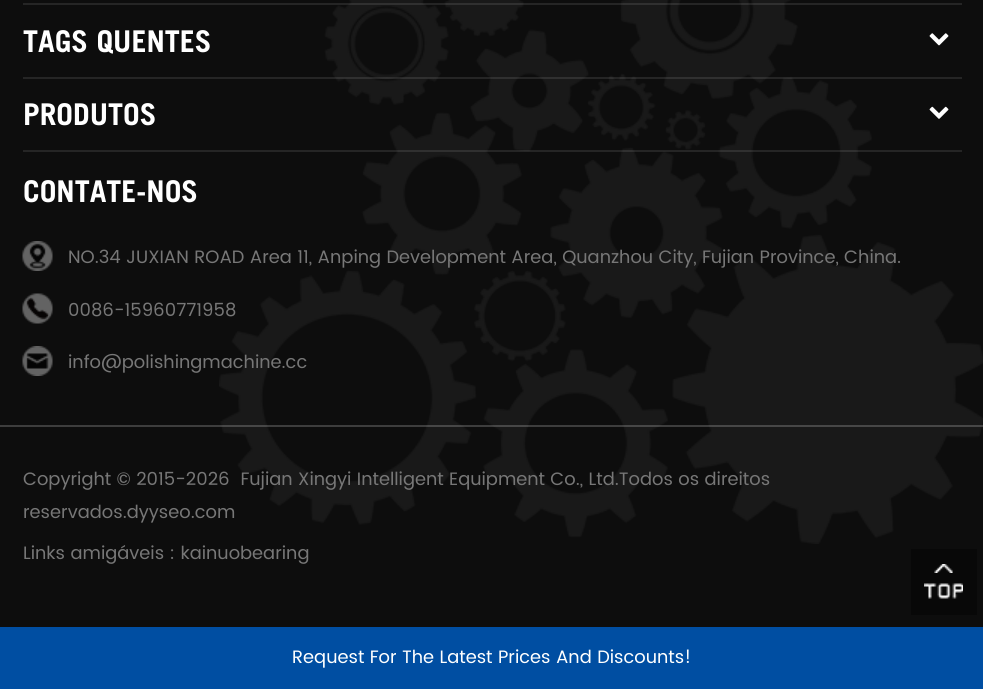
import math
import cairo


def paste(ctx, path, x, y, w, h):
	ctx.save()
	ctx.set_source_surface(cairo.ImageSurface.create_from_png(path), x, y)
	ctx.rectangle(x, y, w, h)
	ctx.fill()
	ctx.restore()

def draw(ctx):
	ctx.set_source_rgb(0.051, 0.051, 0.051)
	ctx.paint()
	paste(ctx, 'media/1.png', 219, 0, 764, 544)
	ctx.set_source_rgba(1, 1, 1, 0.1)
	ctx.rectangle(23, 3, 939, 2)
	ctx.fill()
	ctx.rectangle(23, 77, 939, 2)
	ctx.fill()
	ctx.select_font_face('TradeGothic', cairo.FONT_SLANT_NORMAL, cairo.FONT_WEIGHT_BOLD)
	ctx.set_font_size(30)
	ctx.set_source_rgb(1, 1, 1)
	ctx.move_to(23, 52)
	ctx.show_text('TAGS QUENTES')
	paste(ctx, 'media/2.png', 929, 33, 20, 13)
	ctx.set_source_rgba(1, 1, 1, 0.1)
	ctx.rectangle(23, 150, 939, 2)
	ctx.fill()
	ctx.set_source_rgb(1, 1, 1)
	ctx.move_to(23, 125)
	ctx.show_text('PRODUTOS')
	paste(ctx, 'media/3.png', 929, 106, 20, 13)
	ctx.move_to(23, 202)
	ctx.show_text('CONTATE-NOS')
	paste(ctx, 'media/4.png', 22, 241, 31, 30)
	ctx.select_font_face('Poppins')
	ctx.set_font_size(18)
	ctx.set_source_rgb(0.467, 0.467, 0.467)
	ctx.move_to(68, 263)
	ctx.show_text('NO.34 JUXIAN ROAD Area 11, Anping Development Area, Quanzhou City, Fujian Province, China.')
	paste(ctx, 'media/5.png', 22, 293, 31, 31)
	ctx.move_to(68, 316)
	ctx.show_text('0086-15960771958')
	paste(ctx, 'media/6.png', 22, 346, 31, 30)
	ctx.move_to(68, 368)
	ctx.show_text('info@polishingmachine.cc')
	ctx.set_source_rgba(1, 1, 1, 0.2)
	ctx.rectangle(0, 425, 983, 2)
	ctx.fill()
	ctx.set_source_rgb(0.467, 0.467, 0.467)
	for x, y, s in [
		(23, 485, 'Copyright © 2015-2026  Fujian Xingyi Intelligent Equipment Co., Ltd.Todos os direitos'),
		(23, 518, 'reservados.dyyseo.com'),
		(23, 559, 'Links amigáveis : kainuobearing'),
	]:
		ctx.move_to(x, y)
		ctx.show_text(s)
	ctx.set_source_rgb(0.035, 0.035, 0.035)
	ctx.rectangle(911, 549, 66, 66)
	ctx.fill()
	paste(ctx, 'media/7.png', 934, 564, 19, 9)
	paste(ctx, 'media/8.png', 924, 583, 39, 16)
	ctx.set_source_rgb(0, 0.306, 0.635)
	ctx.rectangle(0, 627, 983, 62)
	ctx.fill()
	ctx.set_source_rgb(1, 1, 1)
	ctx.move_to(292, 663)
	ctx.show_text('Request For The Latest Prices And Discounts!')


surface = cairo.ImageSurface(cairo.FORMAT_RGB24, 983, 689)
ctx = cairo.Context(surface)
options = cairo.FontOptions()
options.set_hint_metrics(cairo.HINT_METRICS_OFF)
options.set_hint_style(cairo.HINT_STYLE_NONE)
ctx.set_font_options(options)
ctx.set_miter_limit(4)
draw(ctx)
surface.write_to_png('image.png')
